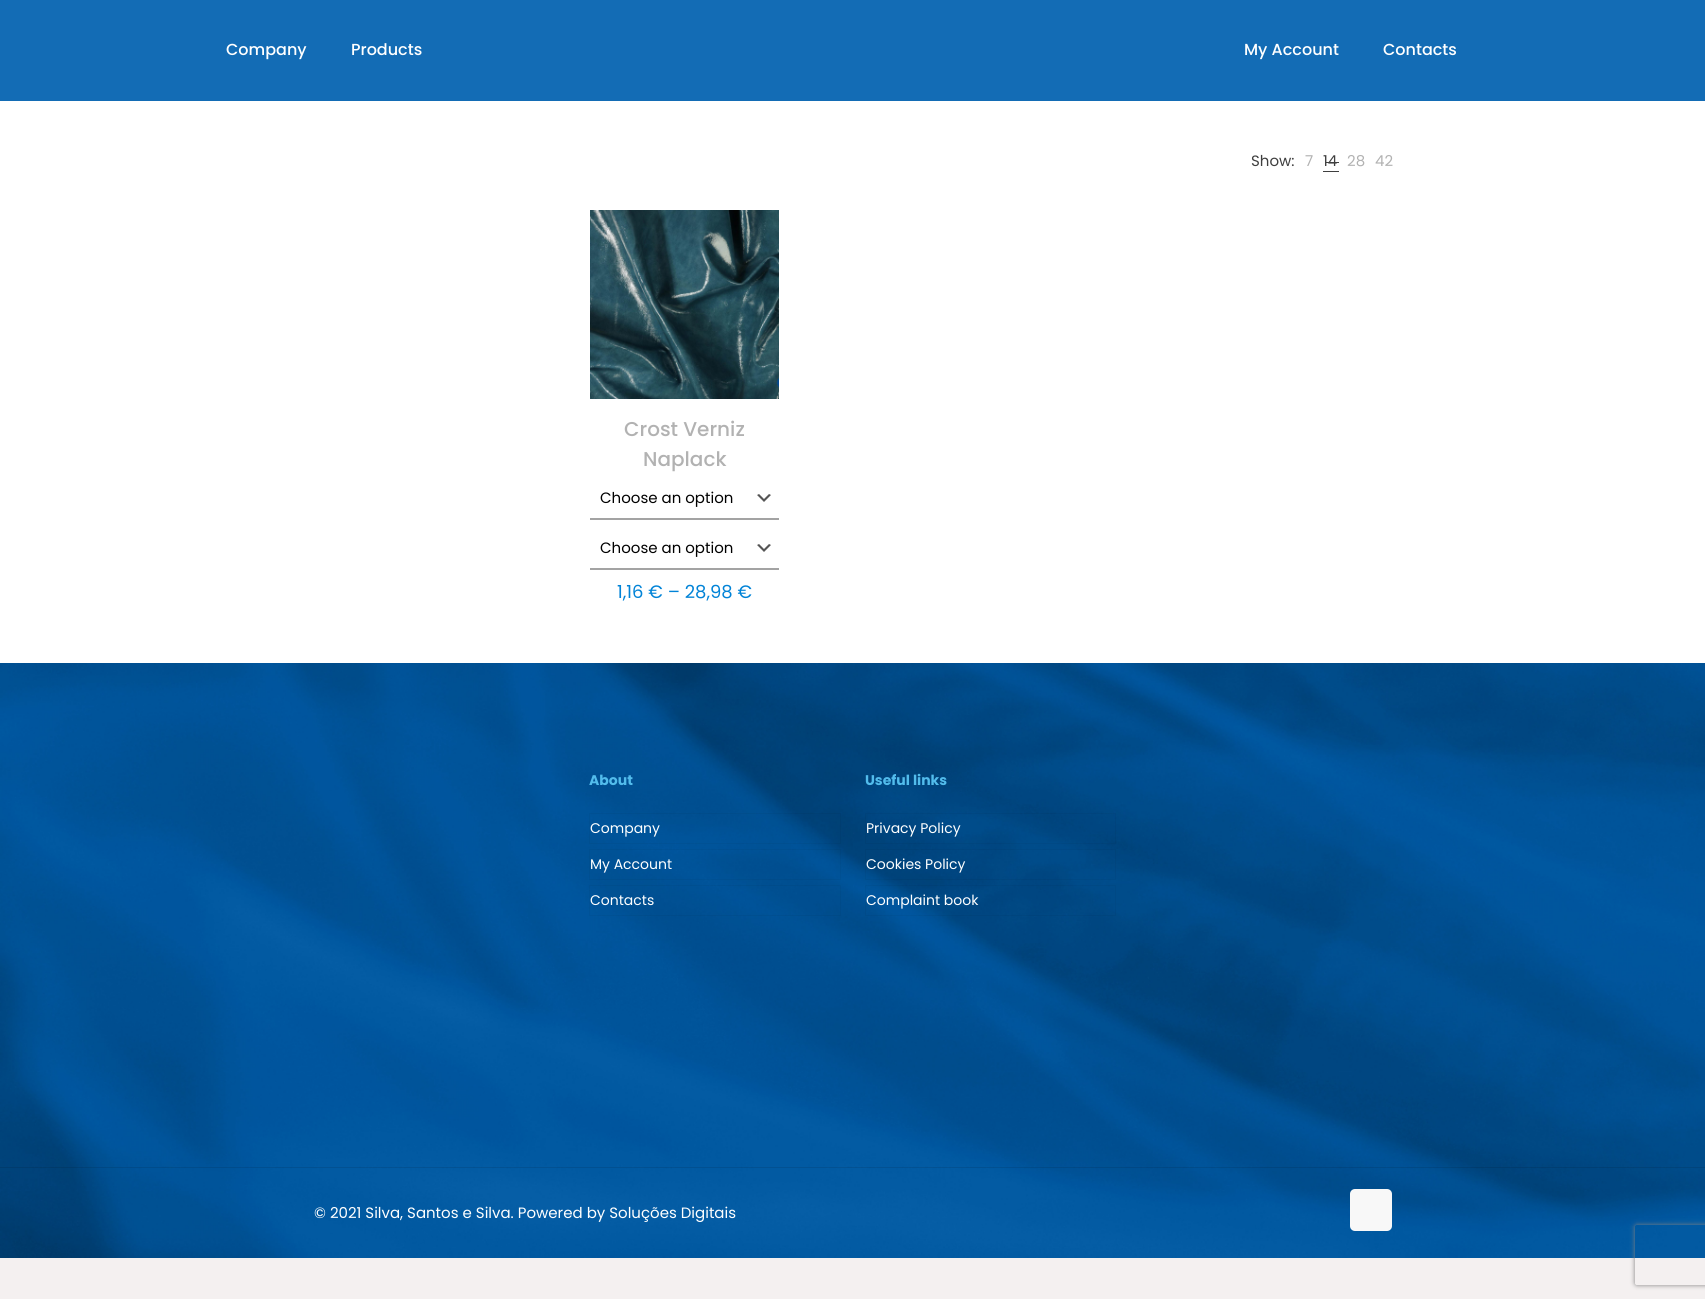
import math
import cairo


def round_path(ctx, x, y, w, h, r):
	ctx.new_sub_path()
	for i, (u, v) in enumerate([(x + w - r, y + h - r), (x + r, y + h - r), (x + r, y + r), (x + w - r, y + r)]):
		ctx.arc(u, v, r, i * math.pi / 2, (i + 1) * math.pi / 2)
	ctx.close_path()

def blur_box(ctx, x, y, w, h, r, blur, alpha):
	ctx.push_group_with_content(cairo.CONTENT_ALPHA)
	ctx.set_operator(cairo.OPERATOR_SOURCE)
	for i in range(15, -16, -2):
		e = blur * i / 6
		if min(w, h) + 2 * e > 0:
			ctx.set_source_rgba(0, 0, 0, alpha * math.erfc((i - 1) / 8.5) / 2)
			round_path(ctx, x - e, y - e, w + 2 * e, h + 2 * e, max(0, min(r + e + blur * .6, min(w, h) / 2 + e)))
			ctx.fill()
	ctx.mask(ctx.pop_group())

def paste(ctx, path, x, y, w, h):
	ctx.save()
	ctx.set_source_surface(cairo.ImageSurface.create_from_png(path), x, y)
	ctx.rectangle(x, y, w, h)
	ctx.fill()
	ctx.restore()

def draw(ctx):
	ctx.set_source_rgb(0.957, 0.941, 0.941)
	ctx.paint()
	ctx.set_source_rgb(1, 1, 1)
	ctx.rectangle(0, 101, 1705, 562)
	ctx.fill()
	ctx.set_source_rgb(0.078, 0.424, 0.71)
	ctx.rectangle(0, 0, 1705, 101)
	ctx.fill()
	ctx.select_font_face('Poppins Medium')
	ctx.set_font_size(16)
	ctx.set_source_rgb(1, 1, 1)
	for x, y, s in [
		(226, 55, 'Company'),
		(351, 55, 'Products'),
		(1244, 55, 'My Account'),
		(1383, 55, 'Contacts'),
	]:
		ctx.move_to(x, y)
		ctx.show_text(s)
	ctx.select_font_face('Poppins')
	ctx.set_font_size(15)
	ctx.set_source_rgb(0.247, 0.247, 0.247)
	ctx.move_to(1251, 166)
	ctx.show_text('Show:')
	ctx.set_source_rgb(0.698, 0.698, 0.698)
	ctx.move_to(1305, 166)
	ctx.show_text('7')
	ctx.set_source_rgb(0.247, 0.247, 0.247)
	ctx.rectangle(1326, 162, 13, 1)
	ctx.fill()
	ctx.move_to(1323, 166)
	ctx.show_text('14')
	ctx.rectangle(1323, 171, 16, 1)
	ctx.fill()
	ctx.set_source_rgb(0.698, 0.698, 0.698)
	ctx.move_to(1347, 166)
	ctx.show_text('28')
	ctx.move_to(1375, 166)
	ctx.show_text('42')
	paste(ctx, 'media/1.png', 590, 210, 189, 189)
	ctx.select_font_face('Poppins Medium')
	ctx.set_font_size(20)
	ctx.move_to(624, 436)
	ctx.show_text('Crost Verniz')
	ctx.move_to(643, 466)
	ctx.show_text('Naplack')
	paste(ctx, 'media/2.png', 757, 494, 14, 8)
	ctx.set_source_rgb(0.639, 0.639, 0.639)
	ctx.rectangle(590, 518, 189, 2)
	ctx.fill()
	ctx.select_font_face('Poppins')
	ctx.set_font_size(15)
	ctx.set_source_rgb(0, 0, 0)
	ctx.move_to(600, 503)
	ctx.show_text('Choose an option')
	paste(ctx, 'media/2.png', 757, 544, 14, 8)
	ctx.set_source_rgb(0.639, 0.639, 0.639)
	ctx.rectangle(590, 568, 189, 2)
	ctx.fill()
	ctx.set_source_rgb(0, 0, 0)
	ctx.move_to(600, 553)
	ctx.show_text('Choose an option')
	ctx.set_font_size(18)
	ctx.set_source_rgb(0.004, 0.514, 0.843)
	ctx.move_to(617, 598)
	ctx.show_text('1,16 € – 28,98 €')
	paste(ctx, 'media/3.png', 0, 663, 1705, 595)
	ctx.select_font_face('Poppins', cairo.FONT_SLANT_NORMAL, cairo.FONT_WEIGHT_BOLD)
	ctx.set_font_size(14)
	ctx.set_source_rgb(0.322, 0.737, 0.925)
	ctx.move_to(589, 785)
	ctx.show_text('About')
	ctx.rectangle(589.5, 813.5, 251, 30)
	ctx.set_source_rgba(0, 0, 0, 0.04)
	ctx.set_line_width(1)
	ctx.stroke()
	ctx.select_font_face('Poppins')
	ctx.set_source_rgb(1, 1, 1)
	ctx.move_to(590, 833)
	ctx.show_text('Company')
	ctx.rectangle(589.5, 849.5, 251, 30)
	ctx.set_source_rgba(0, 0, 0, 0.04)
	ctx.stroke()
	ctx.set_source_rgb(1, 1, 1)
	ctx.move_to(590, 869)
	ctx.show_text('My Account')
	ctx.rectangle(589.5, 885.5, 251, 30)
	ctx.set_source_rgba(0, 0, 0, 0.04)
	ctx.stroke()
	ctx.set_source_rgb(1, 1, 1)
	ctx.move_to(590, 905)
	ctx.show_text('Contacts')
	ctx.select_font_face('Poppins', cairo.FONT_SLANT_NORMAL, cairo.FONT_WEIGHT_BOLD)
	ctx.set_source_rgb(0.322, 0.737, 0.925)
	ctx.move_to(865, 785)
	ctx.show_text('Useful links')
	ctx.rectangle(865.5, 813.5, 250, 30)
	ctx.set_source_rgba(0, 0, 0, 0.04)
	ctx.stroke()
	ctx.select_font_face('Poppins')
	ctx.set_source_rgb(1, 1, 1)
	ctx.move_to(866, 833)
	ctx.show_text('Privacy Policy')
	ctx.rectangle(865.5, 849.5, 250, 30)
	ctx.set_source_rgba(0, 0, 0, 0.04)
	ctx.stroke()
	ctx.set_source_rgb(1, 1, 1)
	ctx.move_to(866, 869)
	ctx.show_text('Cookies Policy')
	ctx.rectangle(865.5, 885.5, 250, 30)
	ctx.set_source_rgba(0, 0, 0, 0.04)
	ctx.stroke()
	ctx.set_source_rgb(1, 1, 1)
	ctx.move_to(866, 905)
	ctx.show_text('Complaint book')
	ctx.set_source_rgba(0, 0, 0, 0.1)
	ctx.rectangle(0, 1167, 1705, 1)
	ctx.fill()
	ctx.set_font_size(15)
	ctx.set_source_rgb(1, 1, 1)
	ctx.move_to(314, 1218)
	ctx.show_text('© 2021 Silva, Santos e Silva. Powered by Soluções Digitais')
	ctx.set_source_rgb(0.969, 0.969, 0.969)
	round_path(ctx, 1350, 1189, 42, 42, 5)
	ctx.fill()
	ctx.save()
	ctx.set_fill_rule(cairo.FILL_RULE_EVEN_ODD)
	ctx.new_path()
	ctx.move_to(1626, 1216)
	ctx.line_to(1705, 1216)
	ctx.line_to(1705, 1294)
	ctx.line_to(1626, 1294)
	ctx.close_path()
	ctx.move_to(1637, 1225)
	ctx.line_to(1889, 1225)
	ctx.curve_to(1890, 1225, 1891, 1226, 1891, 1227)
	ctx.line_to(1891, 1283)
	ctx.curve_to(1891, 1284, 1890, 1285, 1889, 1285)
	ctx.line_to(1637, 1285)
	ctx.curve_to(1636, 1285, 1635, 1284, 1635, 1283)
	ctx.line_to(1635, 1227)
	ctx.curve_to(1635, 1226, 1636, 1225, 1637, 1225)
	ctx.close_path()
	ctx.clip()
	ctx.set_source_rgb(0.502, 0.502, 0.502)
	blur_box(ctx, 1635, 1225, 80, 60, 2, 2.5, 1)
	ctx.restore()


surface = cairo.ImageSurface(cairo.FORMAT_RGB24, 1705, 1299)
ctx = cairo.Context(surface)
options = cairo.FontOptions()
options.set_hint_metrics(cairo.HINT_METRICS_OFF)
options.set_hint_style(cairo.HINT_STYLE_NONE)
ctx.set_font_options(options)
ctx.set_miter_limit(4)
draw(ctx)
surface.write_to_png('image.png')
